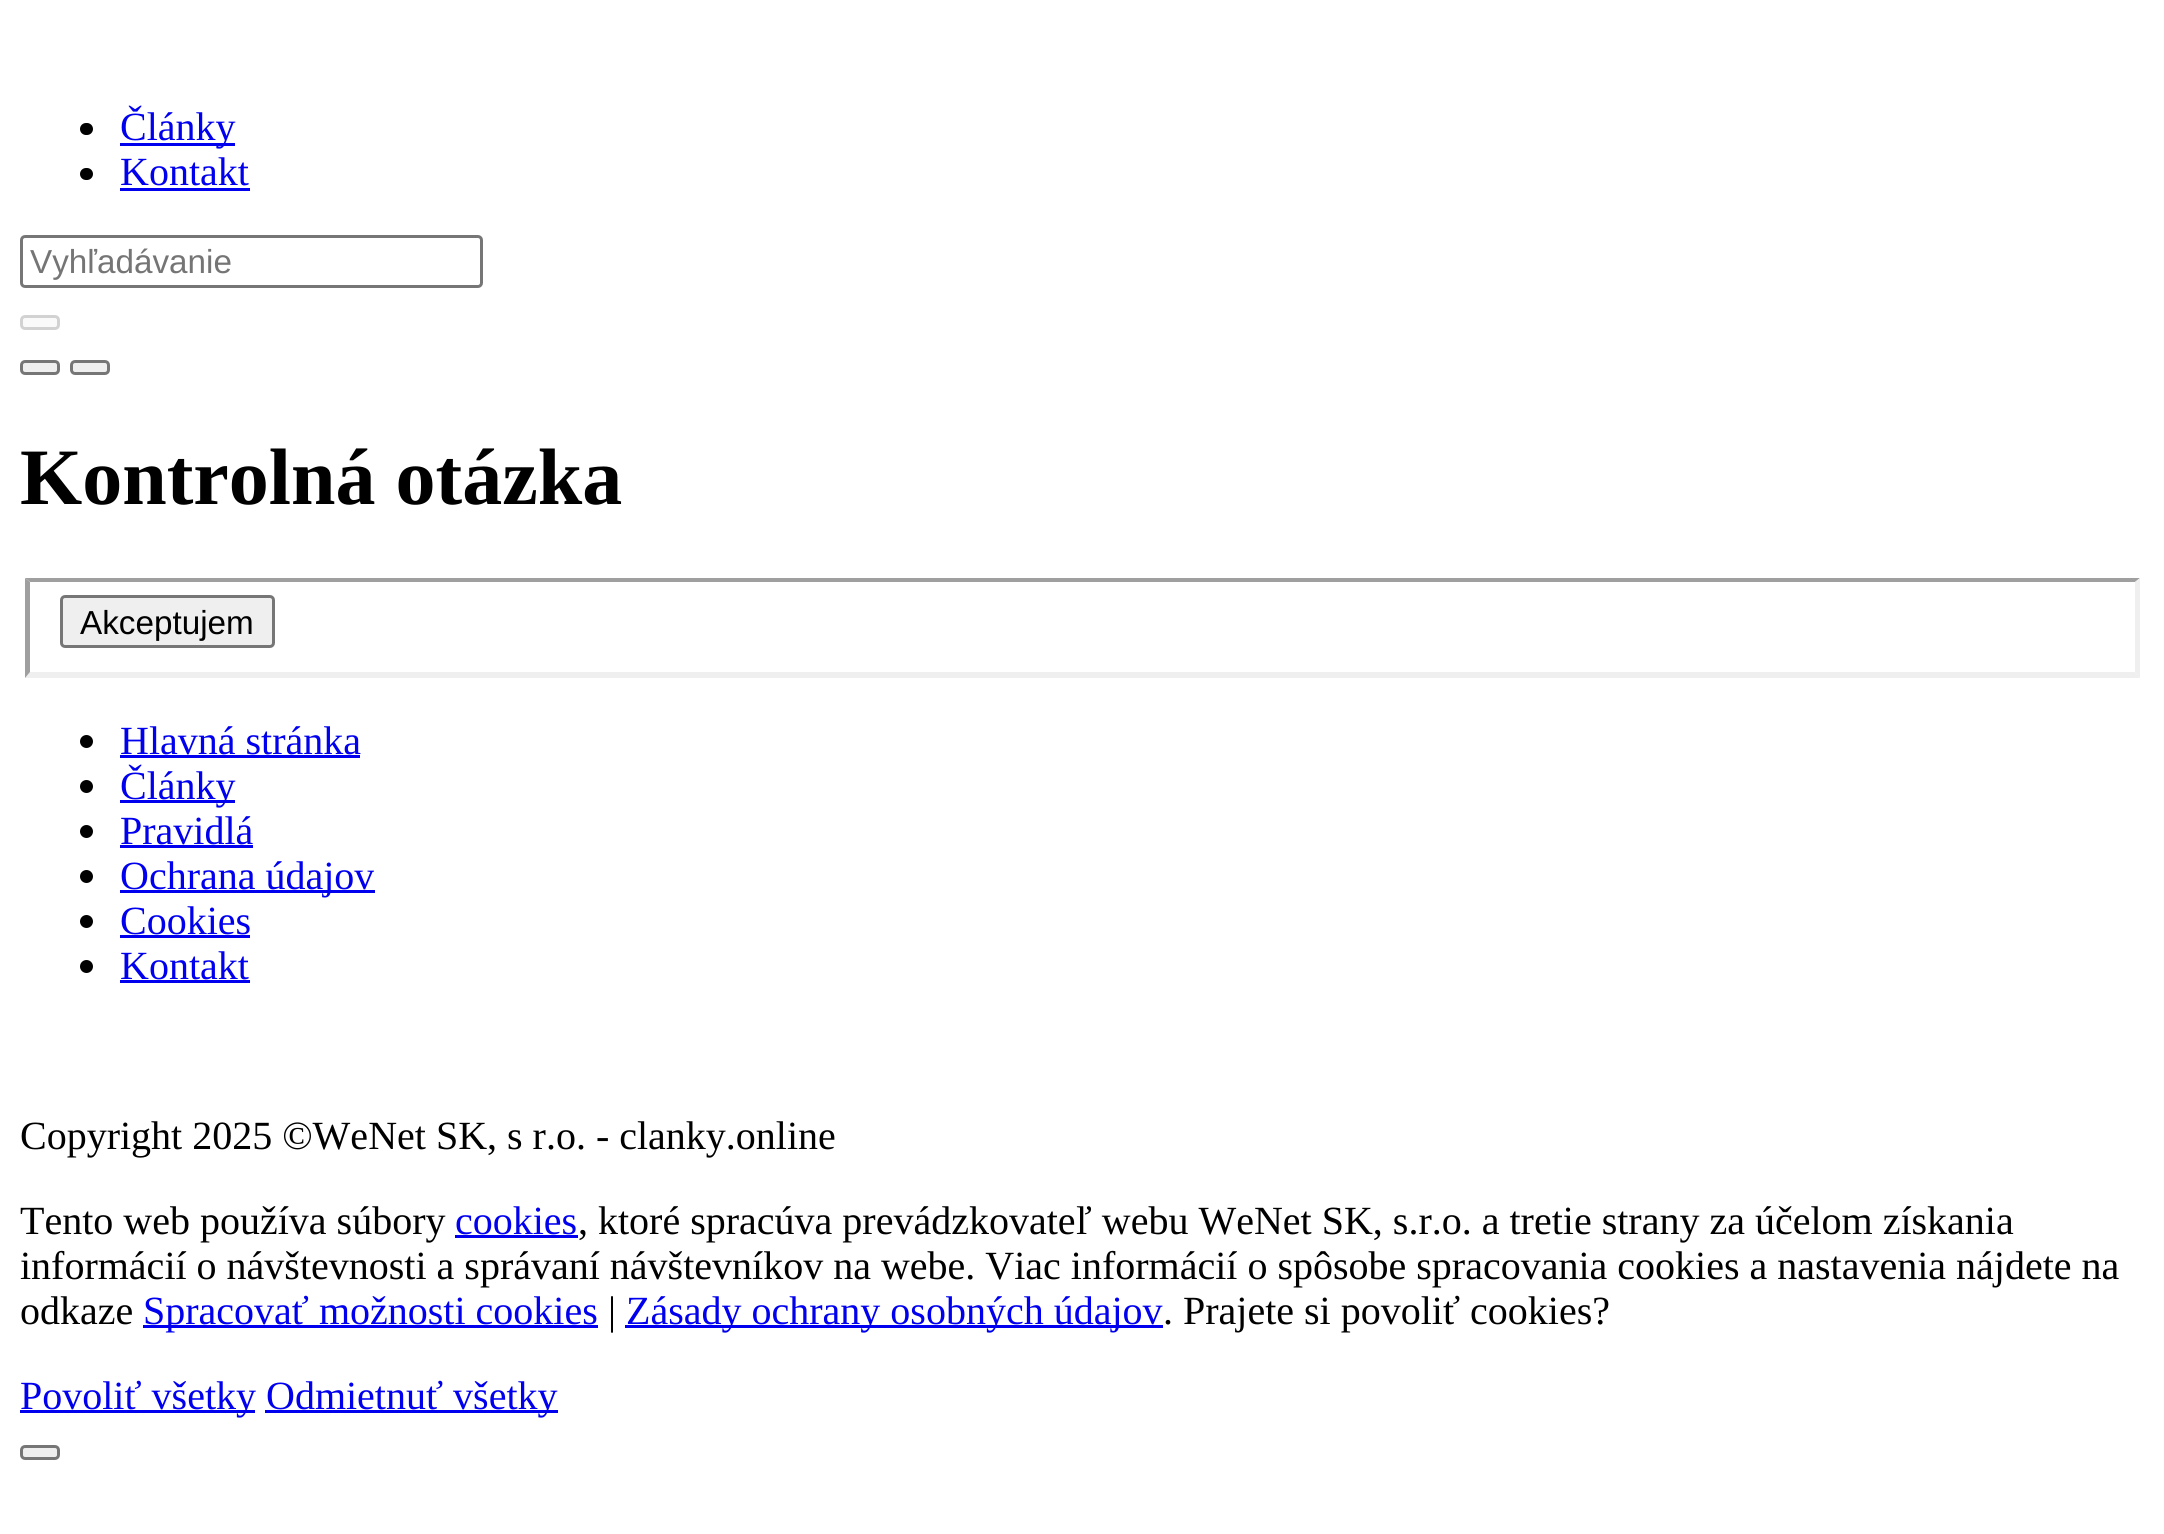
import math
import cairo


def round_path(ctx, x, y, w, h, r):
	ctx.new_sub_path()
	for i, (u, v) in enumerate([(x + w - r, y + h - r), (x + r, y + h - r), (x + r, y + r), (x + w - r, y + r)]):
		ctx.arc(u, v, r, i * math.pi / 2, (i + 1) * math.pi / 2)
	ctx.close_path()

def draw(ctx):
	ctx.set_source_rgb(1, 1, 1)
	ctx.paint()
	ctx.set_source_rgb(0, 0, 0)
	round_path(ctx, 80, 123, 13, 12, 6)
	ctx.fill()
	ctx.set_source_rgb(0, 0, 0.933)
	ctx.rectangle(120, 143, 115, 3)
	ctx.fill()
	ctx.select_font_face('Liberation Serif')
	ctx.set_font_size(40)
	ctx.move_to(120, 140)
	ctx.show_text('Články')
	ctx.set_source_rgb(0, 0, 0)
	round_path(ctx, 80, 168, 13, 12, 6)
	ctx.fill()
	ctx.set_source_rgb(0, 0, 0.933)
	ctx.move_to(120, 185)
	ctx.show_text('Kontakt')
	ctx.rectangle(120, 188, 130, 3)
	ctx.fill()
	round_path(ctx, 21.5, 236.5, 460, 50, 3.5)
	ctx.set_source_rgb(0.463, 0.463, 0.463)
	ctx.set_line_width(3)
	ctx.stroke()
	ctx.select_font_face('Liberation Sans')
	ctx.set_font_size(33.25)
	ctx.set_source_rgb(0.459, 0.459, 0.459)
	ctx.move_to(30, 273)
	ctx.show_text('Vyhľadávanie')
	ctx.set_source_rgb(0.98, 0.98, 0.98)
	round_path(ctx, 21.5, 316.5, 37, 12, 3.5)
	ctx.fill_preserve()
	ctx.set_source_rgb(0.824, 0.824, 0.824)
	ctx.stroke()
	ctx.set_source_rgb(0.937, 0.937, 0.937)
	round_path(ctx, 21.5, 361.5, 37, 12, 3.5)
	ctx.fill_preserve()
	ctx.set_source_rgb(0.463, 0.463, 0.463)
	ctx.stroke()
	ctx.set_source_rgb(0.937, 0.937, 0.937)
	round_path(ctx, 71.5, 361.5, 37, 12, 3.5)
	ctx.fill_preserve()
	ctx.set_source_rgb(0.463, 0.463, 0.463)
	ctx.stroke()
	ctx.select_font_face('Liberation Serif', cairo.FONT_SLANT_NORMAL, cairo.FONT_WEIGHT_BOLD)
	ctx.set_font_size(80)
	ctx.set_source_rgb(0, 0, 0)
	ctx.move_to(20, 504)
	ctx.show_text('Kontrolná otázka')
	ctx.set_source_rgb(0.624, 0.624, 0.624)
	ctx.new_path()
	ctx.move_to(25, 578)
	ctx.line_to(2140, 578)
	ctx.line_to(2135, 582)
	ctx.line_to(30, 582)
	ctx.close_path()
	ctx.fill()
	ctx.set_source_rgb(0.937, 0.937, 0.937)
	ctx.new_path()
	ctx.move_to(2140, 578)
	ctx.line_to(2140, 678)
	ctx.line_to(2135, 672)
	ctx.line_to(2135, 582)
	ctx.close_path()
	ctx.fill()
	ctx.new_path()
	ctx.move_to(2140, 678)
	ctx.line_to(25, 678)
	ctx.line_to(30, 672)
	ctx.line_to(2135, 672)
	ctx.close_path()
	ctx.fill()
	ctx.set_source_rgb(0.624, 0.624, 0.624)
	ctx.new_path()
	ctx.move_to(25, 678)
	ctx.line_to(25, 578)
	ctx.line_to(30, 582)
	ctx.line_to(30, 672)
	ctx.close_path()
	ctx.fill()
	ctx.set_source_rgb(0.937, 0.937, 0.937)
	round_path(ctx, 61.5, 596.5, 212, 50, 3.5)
	ctx.fill_preserve()
	ctx.set_source_rgb(0.463, 0.463, 0.463)
	ctx.stroke()
	ctx.select_font_face('Liberation Sans')
	ctx.set_font_size(33.25)
	ctx.set_source_rgb(0, 0, 0)
	ctx.move_to(80, 634)
	ctx.show_text('Akceptujem')
	ctx.new_path()
	ctx.arc(86.5, 741.5, 6.5, 0, 2 * math.pi)
	ctx.fill()
	ctx.select_font_face('Liberation Serif')
	ctx.set_font_size(40)
	ctx.set_source_rgb(0, 0, 0.933)
	ctx.move_to(120, 754)
	ctx.show_text('Hlavná stránka')
	ctx.rectangle(120, 755, 240, 3)
	ctx.fill()
	ctx.set_source_rgb(0, 0, 0)
	ctx.arc(86.5, 786.5, 6.5, 0, 2 * math.pi)
	ctx.fill()
	ctx.set_source_rgb(0, 0, 0.933)
	ctx.rectangle(120, 800, 115, 3)
	ctx.fill()
	ctx.move_to(120, 799)
	ctx.show_text('Články')
	ctx.set_source_rgb(0, 0, 0)
	ctx.new_path()
	ctx.arc(86.5, 831.5, 6.5, 0, 2 * math.pi)
	ctx.fill()
	ctx.set_source_rgb(0, 0, 0.933)
	ctx.move_to(120, 844)
	ctx.show_text('Pravidlá')
	ctx.rectangle(120, 845, 133, 3)
	ctx.fill()
	ctx.set_source_rgb(0, 0, 0)
	ctx.arc(86.5, 876.5, 6.5, 0, 2 * math.pi)
	ctx.fill()
	ctx.set_source_rgb(0, 0, 0.933)
	ctx.rectangle(120, 890, 255, 3)
	ctx.fill()
	ctx.move_to(120, 889)
	ctx.show_text('Ochrana údajov')
	ctx.set_source_rgb(0, 0, 0)
	ctx.new_path()
	ctx.arc(86.5, 921.5, 6.5, 0, 2 * math.pi)
	ctx.fill()
	ctx.set_source_rgb(0, 0, 0.933)
	ctx.move_to(120, 934)
	ctx.show_text('Cookies')
	ctx.rectangle(120, 935, 130, 3)
	ctx.fill()
	ctx.set_source_rgb(0, 0, 0)
	ctx.arc(86.5, 966.5, 6.5, 0, 2 * math.pi)
	ctx.fill()
	ctx.set_source_rgb(0, 0, 0.933)
	ctx.move_to(120, 979)
	ctx.show_text('Kontakt')
	ctx.rectangle(120, 980, 130, 3)
	ctx.fill()
	ctx.set_source_rgb(0, 0, 0)
	ctx.move_to(20, 1149)
	ctx.show_text('Copyright 2025 ©WeNet SK, s r.o. - clanky.online')
	ctx.move_to(20, 1234)
	ctx.show_text('Tento web používa súbory')
	ctx.set_source_rgb(0, 0, 0.933)
	ctx.move_to(455, 1234)
	ctx.show_text('cookies')
	ctx.rectangle(455, 1235, 123, 3)
	ctx.fill()
	ctx.set_source_rgb(0, 0, 0)
	for x, y, s in [
		(578, 1234, ', ktoré spracúva prevádzkovateľ webu WeNet SK, s.r.o. a tretie strany za účelom získania'),
		(20, 1279, 'informácií o návštevnosti a správaní návštevníkov na webe. Viac informácií o spôsobe spracovania cookies a nastavenia nájdete na'),
		(20, 1324, 'odkaze'),
	]:
		ctx.move_to(x, y)
		ctx.show_text(s)
	ctx.set_source_rgb(0, 0, 0.933)
	ctx.rectangle(143, 1325, 455, 3)
	ctx.fill()
	ctx.move_to(143, 1324)
	ctx.show_text('Spracovať možnosti cookies')
	ctx.set_source_rgb(0, 0, 0)
	ctx.move_to(608, 1324)
	ctx.show_text('|')
	ctx.set_source_rgb(0, 0, 0.933)
	ctx.rectangle(625, 1325, 538, 3)
	ctx.fill()
	ctx.move_to(626, 1324)
	ctx.show_text('Zásady ochrany osobných údajov')
	ctx.set_source_rgb(0, 0, 0)
	ctx.move_to(1163, 1324)
	ctx.show_text('. Prajete si povoliť cookies?')
	ctx.set_source_rgb(0, 0, 0.933)
	ctx.rectangle(20, 1410, 235, 3)
	ctx.fill()
	ctx.move_to(20, 1409)
	ctx.show_text('Povoliť všetky')
	ctx.rectangle(265, 1410, 293, 3)
	ctx.fill()
	ctx.move_to(266, 1409)
	ctx.show_text('Odmietnuť všetky')
	ctx.set_source_rgb(0.937, 0.937, 0.937)
	round_path(ctx, 21.5, 1446.5, 37, 12, 3.5)
	ctx.fill_preserve()
	ctx.set_source_rgb(0.463, 0.463, 0.463)
	ctx.stroke()


surface = cairo.ImageSurface(cairo.FORMAT_RGB24, 2164, 1534)
ctx = cairo.Context(surface)
options = cairo.FontOptions()
options.set_hint_metrics(cairo.HINT_METRICS_OFF)
options.set_hint_style(cairo.HINT_STYLE_NONE)
ctx.set_font_options(options)
ctx.set_miter_limit(4)
draw(ctx)
surface.write_to_png('image.png')
